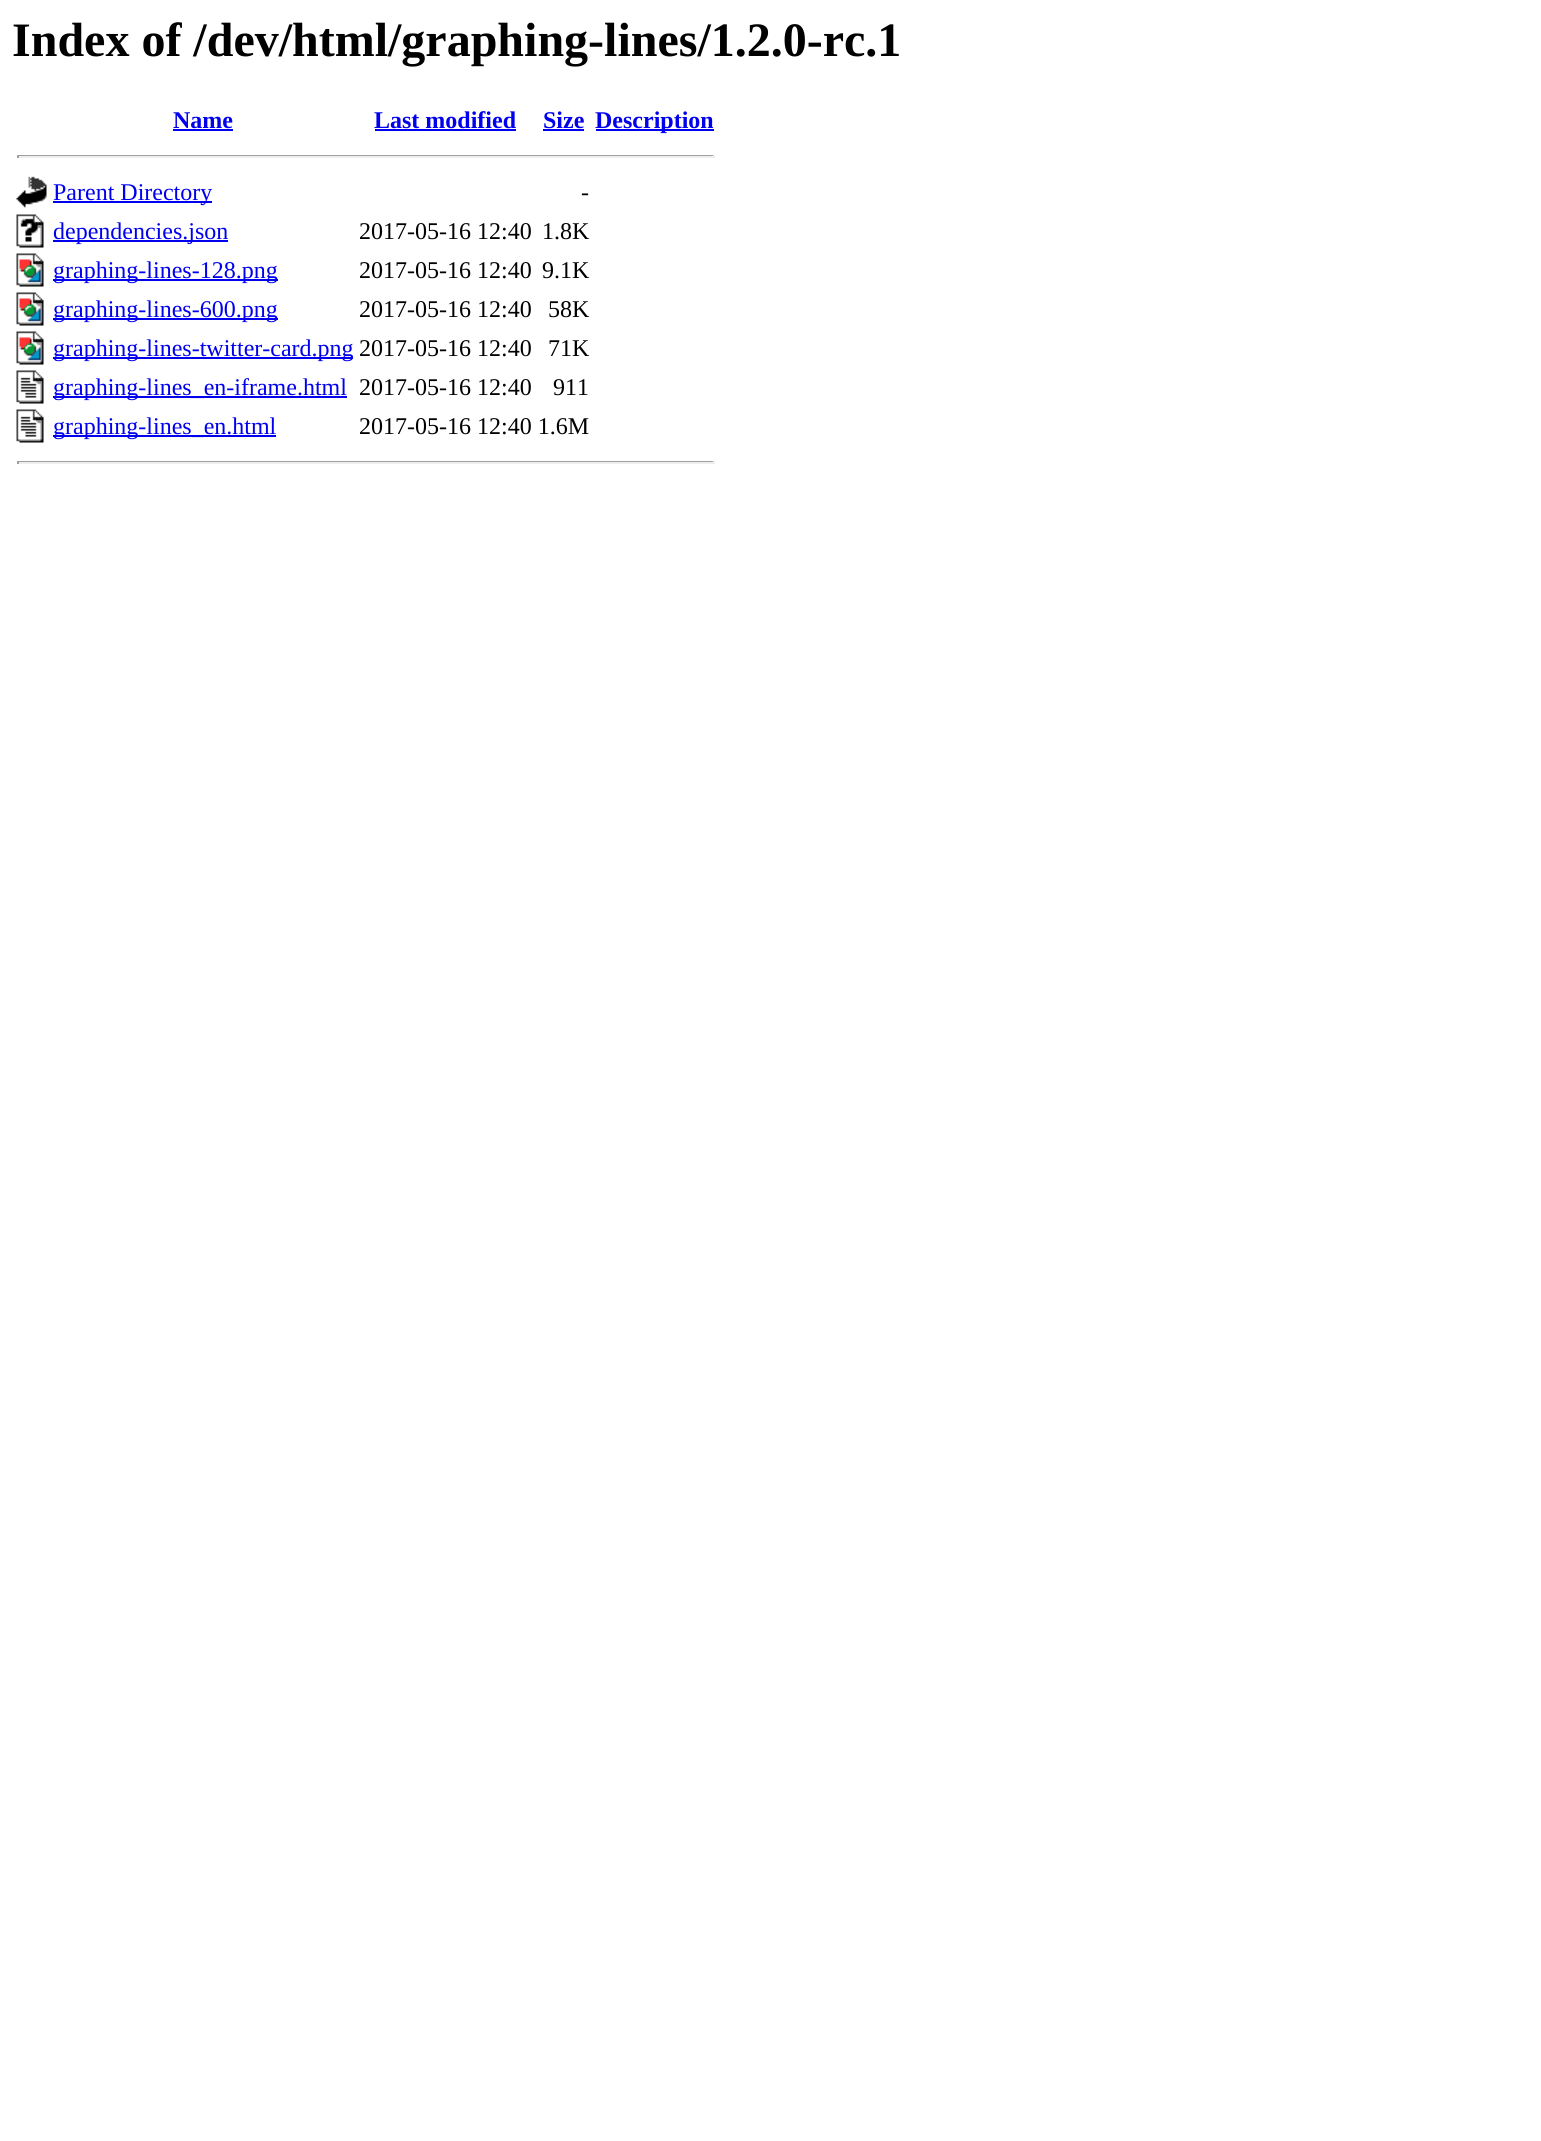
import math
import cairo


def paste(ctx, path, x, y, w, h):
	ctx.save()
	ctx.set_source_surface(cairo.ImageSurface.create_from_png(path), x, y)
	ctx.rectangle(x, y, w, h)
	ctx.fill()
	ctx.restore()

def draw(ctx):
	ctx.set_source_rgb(1, 1, 1)
	ctx.paint()
	ctx.select_font_face('Liberation Serif', cairo.FONT_SLANT_NORMAL, cairo.FONT_WEIGHT_BOLD)
	ctx.set_font_size(48)
	ctx.set_source_rgb(0, 0, 0)
	ctx.move_to(12, 56)
	ctx.show_text('Index of /dev/html/graphing-lines/1.2.0-rc.1')
	ctx.set_font_size(24)
	ctx.set_source_rgb(0, 0, 0.933)
	ctx.move_to(173, 128)
	ctx.show_text('Name')
	ctx.rectangle(173, 129, 60, 2)
	ctx.fill()
	ctx.move_to(374, 128)
	ctx.show_text('Last modified')
	ctx.rectangle(375, 129, 141, 2)
	ctx.fill()
	ctx.move_to(543, 128)
	ctx.show_text('Size')
	ctx.rectangle(543, 129, 41, 2)
	ctx.fill()
	ctx.rectangle(596, 129, 118, 2)
	ctx.fill()
	ctx.move_to(595, 128)
	ctx.show_text('Description')
	ctx.set_source_rgb(0.624, 0.624, 0.624)
	ctx.rectangle(17, 155, 697, 1)
	ctx.fill()
	ctx.set_source_rgb(0.933, 0.933, 0.933)
	ctx.rectangle(713, 155, 2, 3)
	ctx.rectangle(17, 156, 697, 2)
	ctx.fill()
	ctx.set_source_rgb(0.624, 0.624, 0.624)
	ctx.rectangle(17, 155, 2, 3)
	ctx.fill()
	paste(ctx, 'media/1.png', 16, 176, 31, 32)
	ctx.set_source_rgb(0, 0, 0.933)
	ctx.rectangle(53, 201, 159, 2)
	ctx.fill()
	ctx.select_font_face('Liberation Serif')
	ctx.move_to(53, 200)
	ctx.show_text('Parent Directory')
	ctx.set_source_rgb(0, 0, 0)
	ctx.move_to(581, 200)
	ctx.show_text('-')
	paste(ctx, 'media/2.png', 16, 214, 28, 34)
	ctx.set_source_rgb(0, 0, 0.933)
	ctx.rectangle(53, 240, 175, 2)
	ctx.fill()
	ctx.move_to(53, 239)
	ctx.show_text('dependencies.json')
	ctx.set_source_rgb(0, 0, 0)
	ctx.move_to(359, 239)
	ctx.show_text('2017-05-16 12:40')
	ctx.move_to(542, 239)
	ctx.show_text('1.8K')
	paste(ctx, 'media/3.png', 16, 253, 28, 34)
	ctx.set_source_rgb(0, 0, 0.933)
	ctx.rectangle(53, 279, 225, 2)
	ctx.fill()
	ctx.move_to(53, 278)
	ctx.show_text('graphing-lines-128.png')
	ctx.set_source_rgb(0, 0, 0)
	ctx.move_to(359, 278)
	ctx.show_text('2017-05-16 12:40')
	ctx.move_to(542, 278)
	ctx.show_text('9.1K')
	paste(ctx, 'media/3.png', 16, 292, 28, 34)
	ctx.set_source_rgb(0, 0, 0.933)
	ctx.rectangle(53, 318, 225, 2)
	ctx.fill()
	ctx.move_to(53, 317)
	ctx.show_text('graphing-lines-600.png')
	ctx.set_source_rgb(0, 0, 0)
	ctx.move_to(359, 317)
	ctx.show_text('2017-05-16 12:40')
	ctx.move_to(548, 317)
	ctx.show_text('58K')
	paste(ctx, 'media/3.png', 16, 331, 28, 34)
	ctx.set_source_rgb(0, 0, 0.933)
	ctx.rectangle(53, 357, 300, 2)
	ctx.fill()
	ctx.move_to(53, 356)
	ctx.show_text('graphing-lines-twitter-card.png')
	ctx.set_source_rgb(0, 0, 0)
	ctx.move_to(359, 356)
	ctx.show_text('2017-05-16 12:40')
	ctx.move_to(548, 356)
	ctx.show_text('71K')
	paste(ctx, 'media/4.png', 16, 370, 28, 34)
	ctx.set_source_rgb(0, 0, 0.933)
	ctx.rectangle(53, 396, 294, 2)
	ctx.fill()
	ctx.move_to(53, 395)
	ctx.show_text('graphing-lines_en-iframe.html')
	ctx.set_source_rgb(0, 0, 0)
	ctx.move_to(359, 395)
	ctx.show_text('2017-05-16 12:40')
	ctx.move_to(553, 395)
	ctx.show_text('911')
	paste(ctx, 'media/4.png', 16, 409, 28, 34)
	ctx.set_source_rgb(0, 0, 0.933)
	ctx.rectangle(53, 435, 223, 2)
	ctx.fill()
	ctx.move_to(53, 434)
	ctx.show_text('graphing-lines_en.html')
	ctx.set_source_rgb(0, 0, 0)
	ctx.move_to(359, 434)
	ctx.show_text('2017-05-16 12:40 1.6M')
	ctx.set_source_rgb(0.624, 0.624, 0.624)
	ctx.rectangle(17, 461, 697, 1)
	ctx.fill()
	ctx.set_source_rgb(0.933, 0.933, 0.933)
	ctx.rectangle(713, 461, 2, 3)
	ctx.rectangle(17, 462, 697, 2)
	ctx.fill()
	ctx.set_source_rgb(0.624, 0.624, 0.624)
	ctx.rectangle(17, 461, 2, 3)
	ctx.fill()


surface = cairo.ImageSurface(cairo.FORMAT_RGB24, 1541, 2141)
ctx = cairo.Context(surface)
options = cairo.FontOptions()
options.set_hint_metrics(cairo.HINT_METRICS_OFF)
options.set_hint_style(cairo.HINT_STYLE_NONE)
ctx.set_font_options(options)
ctx.set_miter_limit(4)
draw(ctx)
surface.write_to_png('image.png')
